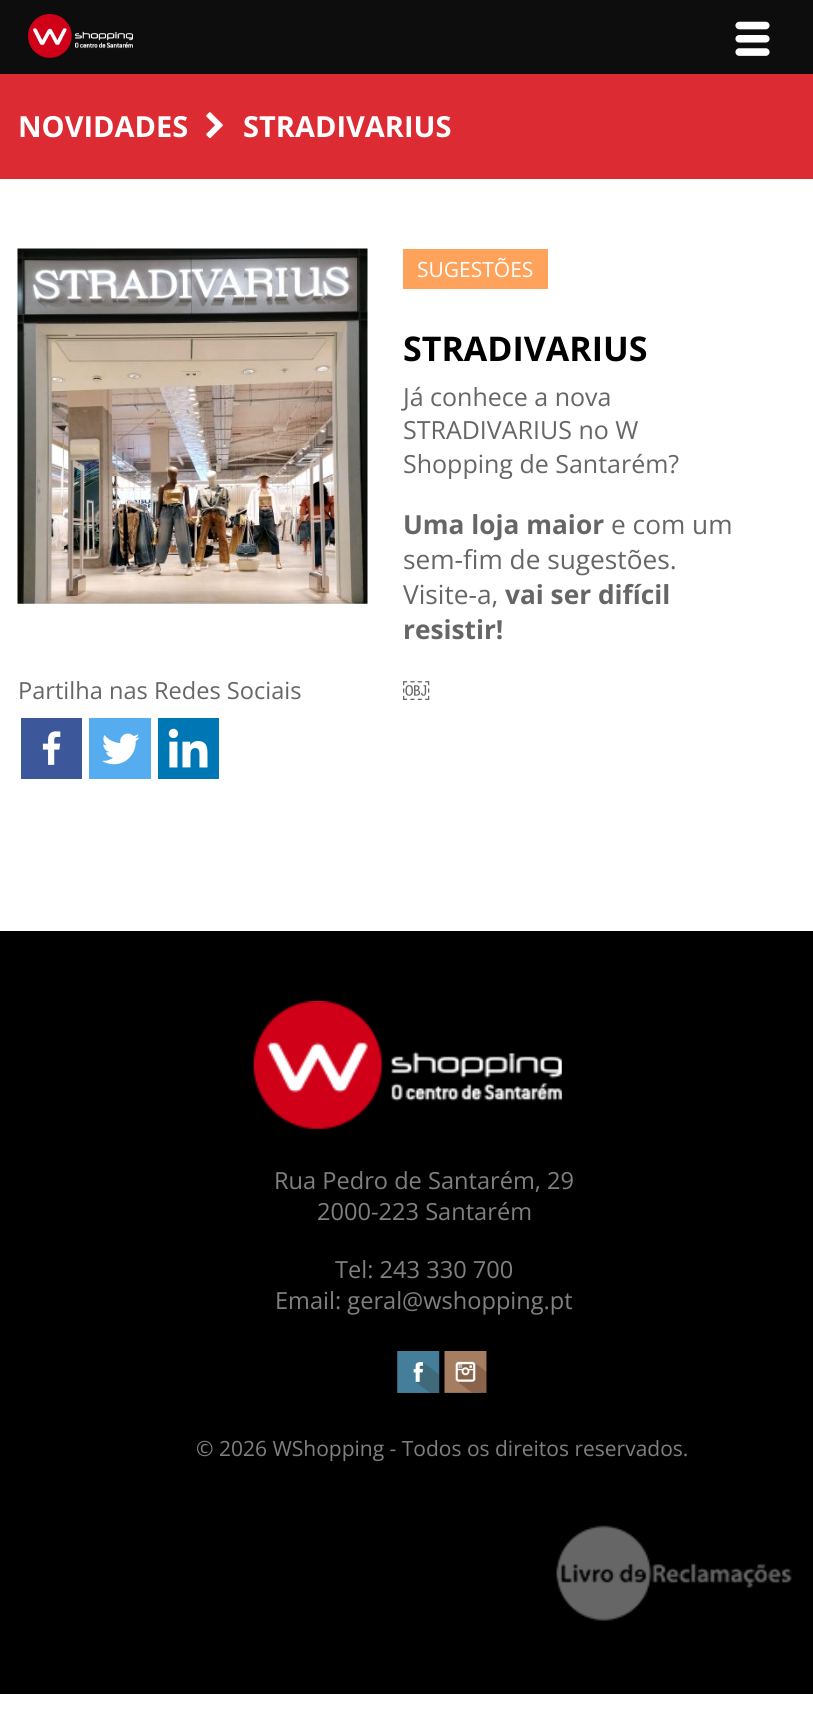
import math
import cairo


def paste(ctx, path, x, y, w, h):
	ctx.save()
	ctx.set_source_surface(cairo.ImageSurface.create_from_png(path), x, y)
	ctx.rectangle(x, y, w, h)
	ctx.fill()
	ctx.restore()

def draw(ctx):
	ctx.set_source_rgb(1, 1, 1)
	ctx.paint()
	ctx.set_source_rgb(0.051, 0.051, 0.051)
	ctx.rectangle(0, 0, 813, 74)
	ctx.fill()
	paste(ctx, 'media/1.png', 28, 14, 105, 44)
	paste(ctx, 'media/2.png', 735, 21, 35, 35)
	ctx.set_source_rgb(0.867, 0.169, 0.204)
	ctx.rectangle(0, 74, 813, 105)
	ctx.fill()
	ctx.select_font_face('Open Sans', cairo.FONT_SLANT_NORMAL, cairo.FONT_WEIGHT_BOLD)
	ctx.set_font_size(29)
	ctx.set_source_rgb(1, 1, 1)
	ctx.move_to(18, 137)
	ctx.show_text('NOVIDADES')
	paste(ctx, 'media/3.png', 206, 112, 17, 27)
	ctx.move_to(243, 137)
	ctx.show_text('STRADIVARIUS')
	paste(ctx, 'media/4.png', 17, 248, 351, 356)
	ctx.select_font_face('Open Sans')
	ctx.set_font_size(23.6)
	ctx.set_source_rgb(0.4, 0.4, 0.4)
	ctx.move_to(18, 699)
	ctx.show_text('Partilha nas Redes Sociais')
	ctx.set_source_rgb(0.235, 0.345, 0.604)
	ctx.rectangle(21, 718, 61, 61)
	ctx.fill()
	paste(ctx, 'media/5.png', 42, 731, 19, 34)
	ctx.set_source_rgb(0.333, 0.675, 0.933)
	ctx.rectangle(89, 718, 62, 61)
	ctx.fill()
	paste(ctx, 'media/6.png', 102, 733, 38, 32)
	ctx.set_source_rgb(0, 0.467, 0.71)
	ctx.rectangle(158, 718, 61, 61)
	ctx.fill()
	paste(ctx, 'media/7.png', 168, 728, 40, 40)
	ctx.set_source_rgb(1, 0.639, 0.361)
	ctx.rectangle(403, 249, 145, 40)
	ctx.fill()
	ctx.set_font_size(21)
	ctx.set_source_rgb(1, 1, 1)
	ctx.move_to(417, 277)
	ctx.show_text('SUGESTÕES')
	ctx.select_font_face('Open Sans', cairo.FONT_SLANT_NORMAL, cairo.FONT_WEIGHT_BOLD)
	ctx.set_font_size(34)
	ctx.set_source_rgb(0, 0, 0)
	ctx.move_to(403, 361)
	ctx.show_text('STRADIVARIUS')
	ctx.select_font_face('Open Sans')
	ctx.set_font_size(25)
	ctx.set_source_rgb(0.4, 0.4, 0.4)
	for x, y, s in [
		(403, 406, 'Já conhece a nova'),
		(403, 439, 'STRADIVARIUS no W'),
		(403, 473, 'Shopping de Santarém?'),
	]:
		ctx.move_to(x, y)
		ctx.show_text(s)
	ctx.select_font_face('Open Sans', cairo.FONT_SLANT_NORMAL, cairo.FONT_WEIGHT_BOLD)
	ctx.set_font_size(26.25)
	ctx.move_to(403, 534)
	ctx.show_text('Uma loja maior')
	ctx.select_font_face('Open Sans')
	for x, y, s in [
		(611, 534, 'e com um'),
		(403, 569, 'sem-fim de sugestões.'),
		(403, 604, 'Visite-a,'),
	]:
		ctx.move_to(x, y)
		ctx.show_text(s)
	ctx.select_font_face('Open Sans', cairo.FONT_SLANT_NORMAL, cairo.FONT_WEIGHT_BOLD)
	ctx.move_to(505, 604)
	ctx.show_text('vai ser difícil')
	ctx.move_to(403, 639)
	ctx.show_text('resistir!')
	ctx.select_font_face('Liberation Sans')
	ctx.move_to(403, 700)
	ctx.show_text('￼')
	ctx.set_source_rgb(0, 0, 0)
	ctx.rectangle(0, 931, 813, 763)
	ctx.fill()
	paste(ctx, 'media/8.png', 253, 1001, 309, 128)
	ctx.select_font_face('Open Sans')
	ctx.set_font_size(23.6)
	ctx.set_source_rgb(0.502, 0.502, 0.502)
	for x, y, s in [
		(274, 1189, 'Rua Pedro de Santarém, 29'),
		(317, 1220, '2000-223 Santarém'),
		(335, 1278, 'Tel: 243 330 700'),
		(275, 1309, 'Email: geral@wshopping.pt'),
	]:
		ctx.move_to(x, y)
		ctx.show_text(s)
	paste(ctx, 'media/9.png', 397, 1351, 43, 42)
	paste(ctx, 'media/10.png', 444, 1351, 43, 42)
	ctx.set_font_size(21)
	ctx.move_to(196, 1456)
	ctx.show_text('© 2026 WShopping - Todos os direitos reservados.')
	paste(ctx, 'media/11.png', 556, 1525, 236, 96)


surface = cairo.ImageSurface(cairo.FORMAT_RGB24, 813, 1728)
ctx = cairo.Context(surface)
options = cairo.FontOptions()
options.set_hint_metrics(cairo.HINT_METRICS_OFF)
options.set_hint_style(cairo.HINT_STYLE_NONE)
ctx.set_font_options(options)
ctx.set_miter_limit(4)
draw(ctx)
surface.write_to_png('image.png')
